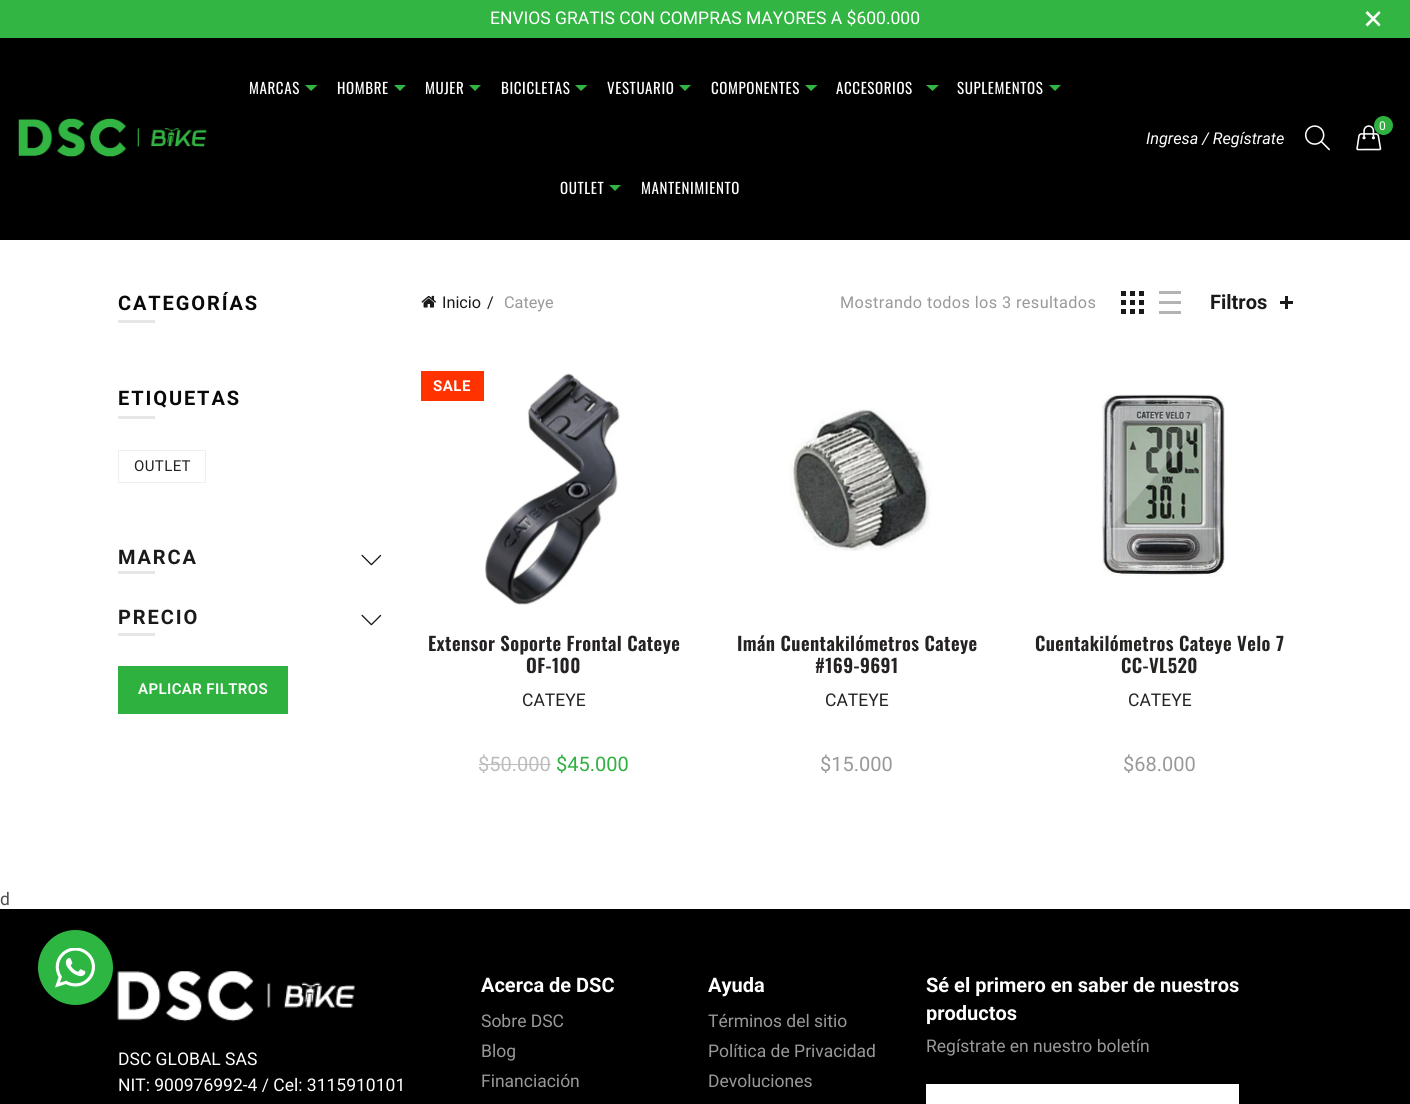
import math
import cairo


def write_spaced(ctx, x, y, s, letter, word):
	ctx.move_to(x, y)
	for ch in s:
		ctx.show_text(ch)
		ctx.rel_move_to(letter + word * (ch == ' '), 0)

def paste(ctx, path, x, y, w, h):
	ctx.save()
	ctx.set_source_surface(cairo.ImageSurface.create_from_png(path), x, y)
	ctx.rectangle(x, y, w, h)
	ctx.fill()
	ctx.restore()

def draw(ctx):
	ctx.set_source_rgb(1, 1, 1)
	ctx.paint()
	ctx.set_source_rgb(0.2, 0.71, 0.263)
	ctx.rectangle(0, 0, 1410, 38)
	ctx.fill()
	ctx.select_font_face('Roboto')
	ctx.set_font_size(17.5)
	ctx.set_source_rgb(1, 1, 1)
	ctx.move_to(490, 24)
	ctx.show_text('ENVIOS GRATIS CON COMPRAS MAYORES A $600.000')
	ctx.new_path()
	ctx.move_to(1367.5, 11)
	ctx.line_to(1380.5, 24.5)
	ctx.line_to(1379, 26.5)
	ctx.line_to(1365.5, 13)
	ctx.close_path()
	ctx.fill()
	ctx.new_path()
	ctx.move_to(1365.5, 24.5)
	ctx.line_to(1379, 11)
	ctx.line_to(1380.5, 13)
	ctx.line_to(1367.5, 26.5)
	ctx.close_path()
	ctx.fill()
	ctx.set_source_rgb(0, 0, 0)
	ctx.rectangle(0, 38, 1410, 202)
	ctx.fill()
	paste(ctx, 'media/1.png', 18, 118, 189, 39)
	ctx.select_font_face('Oswald')
	ctx.set_font_size(15)
	ctx.set_source_rgb(1, 1, 1)
	write_spaced(ctx, 249, 94, 'MARCAS', 0.6, 0)
	ctx.set_source_rgb(0.2, 0.71, 0.263)
	ctx.new_path()
	ctx.move_to(305, 85)
	ctx.line_to(317.5, 85)
	ctx.line_to(311, 91)
	ctx.close_path()
	ctx.fill()
	ctx.set_source_rgb(1, 1, 1)
	write_spaced(ctx, 337, 94, 'HOMBRE', 0.6, 0)
	ctx.set_source_rgb(0.2, 0.71, 0.263)
	ctx.new_path()
	ctx.move_to(394, 85)
	ctx.line_to(406, 85)
	ctx.line_to(400, 91)
	ctx.close_path()
	ctx.fill()
	ctx.set_source_rgb(1, 1, 1)
	write_spaced(ctx, 425, 94, 'MUJER', 0.6, 0)
	ctx.set_source_rgb(0.2, 0.71, 0.263)
	ctx.new_path()
	ctx.move_to(469, 85)
	ctx.line_to(481, 85)
	ctx.line_to(475, 91)
	ctx.close_path()
	ctx.fill()
	ctx.set_source_rgb(1, 1, 1)
	write_spaced(ctx, 501, 94, 'BICICLETAS', 0.6, 0)
	ctx.set_source_rgb(0.2, 0.71, 0.263)
	ctx.new_path()
	ctx.move_to(575, 85)
	ctx.line_to(587.5, 85)
	ctx.line_to(581, 91)
	ctx.close_path()
	ctx.fill()
	ctx.set_source_rgb(1, 1, 1)
	write_spaced(ctx, 607, 94, 'VESTUARIO', 0.6, 0)
	ctx.set_source_rgb(0.2, 0.71, 0.263)
	ctx.new_path()
	ctx.move_to(679, 85)
	ctx.line_to(691, 85)
	ctx.line_to(685, 91)
	ctx.close_path()
	ctx.fill()
	ctx.set_source_rgb(1, 1, 1)
	write_spaced(ctx, 711, 94, 'COMPONENTES', 0.6, 0)
	ctx.set_source_rgb(0.2, 0.71, 0.263)
	ctx.new_path()
	ctx.move_to(805, 85)
	ctx.line_to(817.5, 85)
	ctx.line_to(811, 91)
	ctx.close_path()
	ctx.fill()
	ctx.set_source_rgb(1, 1, 1)
	write_spaced(ctx, 836, 94, 'ACCESORIOS', 0.6, 0)
	ctx.set_source_rgb(0.2, 0.71, 0.263)
	ctx.new_path()
	ctx.move_to(926, 85)
	ctx.line_to(939, 85)
	ctx.line_to(932.5, 91)
	ctx.close_path()
	ctx.fill()
	ctx.set_source_rgb(1, 1, 1)
	write_spaced(ctx, 957, 94, 'SUPLEMENTOS', 0.6, 0)
	ctx.set_source_rgb(0.2, 0.71, 0.263)
	ctx.new_path()
	ctx.move_to(1049, 85)
	ctx.line_to(1061, 85)
	ctx.line_to(1055, 91)
	ctx.close_path()
	ctx.fill()
	ctx.set_source_rgb(1, 1, 1)
	write_spaced(ctx, 560, 194, 'OUTLET', 0.6, 0)
	ctx.set_source_rgb(0.2, 0.71, 0.263)
	ctx.new_path()
	ctx.move_to(609, 185)
	ctx.line_to(621, 185)
	ctx.line_to(615, 191)
	ctx.close_path()
	ctx.fill()
	ctx.set_source_rgb(1, 1, 1)
	write_spaced(ctx, 641, 194, 'MANTENIMIENTO', 0.6, 0)
	ctx.select_font_face('Roboto', cairo.FONT_SLANT_ITALIC)
	ctx.set_font_size(16.25)
	ctx.move_to(1146, 144)
	ctx.show_text('Ingresa / Regístrate')
	paste(ctx, 'media/2.png', 1304, 125, 26, 26)
	paste(ctx, 'media/3.png', 1356, 125, 26, 26)
	ctx.set_source_rgb(0.184, 0.694, 0.251)
	ctx.arc(1383.5, 125.5, 9.5, 0, 2 * math.pi)
	ctx.fill()
	ctx.select_font_face('Roboto')
	ctx.set_font_size(12)
	ctx.set_source_rgb(1, 1, 1)
	ctx.move_to(1379, 130)
	ctx.show_text('0')
	ctx.select_font_face('Roboto', cairo.FONT_SLANT_NORMAL, cairo.FONT_WEIGHT_BOLD)
	ctx.set_font_size(20)
	ctx.set_source_rgb(0.039, 0.039, 0.039)
	write_spaced(ctx, 118, 310, 'CATEGORÍAS', 1.9, 0)
	ctx.set_source_rgb(0.902, 0.902, 0.902)
	ctx.rectangle(118, 320, 37, 3)
	ctx.fill()
	ctx.set_source_rgb(0.039, 0.039, 0.039)
	write_spaced(ctx, 118, 405, 'ETIQUETAS', 1.9, 0)
	ctx.set_source_rgb(0.902, 0.902, 0.902)
	ctx.rectangle(118, 416, 37, 3)
	ctx.fill()
	ctx.rectangle(118.5, 450.5, 87, 32)
	ctx.set_source_rgb(0.937, 0.937, 0.937)
	ctx.set_line_width(1)
	ctx.stroke()
	ctx.select_font_face('Roboto')
	ctx.set_font_size(15)
	ctx.set_source_rgb(0.145, 0.133, 0.133)
	write_spaced(ctx, 134, 471, 'OUTLET', 0.4, 0)
	ctx.select_font_face('Roboto', cairo.FONT_SLANT_NORMAL, cairo.FONT_WEIGHT_BOLD)
	ctx.set_font_size(20)
	ctx.set_source_rgb(0.106, 0.098, 0.098)
	write_spaced(ctx, 118, 564, 'MARCA', 1.9, 0)
	paste(ctx, 'media/4.png', 361, 554, 21, 12)
	ctx.set_source_rgb(0.902, 0.902, 0.902)
	ctx.rectangle(118, 571, 37, 3)
	ctx.fill()
	ctx.set_source_rgb(0.106, 0.098, 0.098)
	write_spaced(ctx, 118, 624, 'PRECIO', 1.9, 0)
	paste(ctx, 'media/4.png', 361, 614, 21, 12)
	ctx.set_source_rgb(0.902, 0.902, 0.902)
	ctx.rectangle(118, 633, 37, 3)
	ctx.fill()
	ctx.set_source_rgb(0.184, 0.694, 0.251)
	ctx.rectangle(118, 666, 170, 48)
	ctx.fill()
	ctx.select_font_face('Roboto SemiBold')
	ctx.set_font_size(15)
	ctx.set_source_rgb(1, 1, 1)
	write_spaced(ctx, 138, 694, 'APLICAR FILTROS', 0.4, 0)
	paste(ctx, 'media/5.png', 421, 295, 16, 13)
	ctx.select_font_face('Roboto')
	ctx.set_font_size(16.25)
	ctx.set_source_rgb(0.106, 0.098, 0.098)
	ctx.move_to(442, 308)
	ctx.show_text('Inicio')
	ctx.move_to(487, 308)
	ctx.show_text('/')
	ctx.set_source_rgb(0.6, 0.6, 0.6)
	ctx.move_to(504, 308)
	ctx.show_text('Cateye')
	write_spaced(ctx, 840, 308, 'Mostrando todos los 3 resultados', 0.4, 0)
	paste(ctx, 'media/6.png', 1121, 291, 23, 23)
	ctx.set_source_rgb(0.702, 0.702, 0.702)
	ctx.rectangle(1159, 291, 22, 3)
	ctx.rectangle(1159, 311, 22, 3)
	ctx.rectangle(1159, 301, 22, 3)
	ctx.fill()
	ctx.select_font_face('Roboto', cairo.FONT_SLANT_NORMAL, cairo.FONT_WEIGHT_BOLD)
	ctx.set_font_size(20)
	ctx.set_source_rgb(0.106, 0.098, 0.098)
	ctx.move_to(1210, 309)
	ctx.show_text('Filtros')
	ctx.rectangle(1285, 296, 3, 13)
	ctx.fill()
	ctx.rectangle(1280, 301, 13, 3)
	ctx.fill()
	paste(ctx, 'media/7.png', 485, 373, 135, 232)
	ctx.set_source_rgb(1, 0.196, 0)
	ctx.rectangle(421, 371, 63, 30)
	ctx.fill()
	ctx.set_font_size(15)
	ctx.set_source_rgb(1, 1, 1)
	write_spaced(ctx, 433, 391, 'SALE', 0.5, 0)
	ctx.select_font_face('Oswald SemiBold')
	ctx.set_font_size(18.75)
	ctx.set_source_rgb(0.145, 0.133, 0.133)
	write_spaced(ctx, 428, 651, 'Extensor Soporte Frontal Cateye', 0.4, 0)
	write_spaced(ctx, 526, 673, 'OF-100', 0.4, 0)
	ctx.select_font_face('Roboto')
	ctx.set_font_size(17.5)
	ctx.move_to(522, 706)
	ctx.show_text('CATEYE')
	ctx.set_font_size(20)
	ctx.set_source_rgb(0.741, 0.741, 0.741)
	ctx.move_to(478, 771)
	ctx.show_text('$50.000')
	ctx.rectangle(479, 764, 72, 1)
	ctx.fill()
	ctx.set_source_rgb(0.184, 0.694, 0.251)
	ctx.move_to(556, 771)
	ctx.show_text('$45.000')
	paste(ctx, 'media/8.png', 789, 408, 143, 143)
	ctx.select_font_face('Oswald SemiBold')
	ctx.set_font_size(18.75)
	ctx.set_source_rgb(0.145, 0.133, 0.133)
	write_spaced(ctx, 737, 651, 'Imán Cuentakilómetros Cateye', 0.4, 0)
	write_spaced(ctx, 815, 673, '#169-9691', 0.4, 0)
	ctx.select_font_face('Roboto')
	ctx.set_font_size(17.5)
	ctx.move_to(825, 706)
	ctx.show_text('CATEYE')
	ctx.set_font_size(20)
	ctx.set_source_rgb(0.6, 0.6, 0.6)
	ctx.move_to(820, 771)
	ctx.show_text('$15.000')
	paste(ctx, 'media/9.png', 1101, 394, 124, 183)
	ctx.select_font_face('Oswald SemiBold')
	ctx.set_font_size(18.75)
	ctx.set_source_rgb(0.145, 0.133, 0.133)
	write_spaced(ctx, 1035, 651, 'Cuentakilómetros Cateye Velo 7', 0.4, 0)
	write_spaced(ctx, 1121, 673, 'CC-VL520', 0.4, 0)
	ctx.select_font_face('Roboto')
	ctx.set_font_size(17.5)
	ctx.move_to(1128, 706)
	ctx.show_text('CATEYE')
	ctx.set_font_size(20)
	ctx.set_source_rgb(0.6, 0.6, 0.6)
	ctx.move_to(1123, 771)
	ctx.show_text('$68.000')
	ctx.set_font_size(17.5)
	ctx.set_source_rgb(0.298, 0.298, 0.298)
	ctx.move_to(0, 905)
	ctx.show_text('d')
	ctx.set_source_rgb(0, 0, 0)
	ctx.rectangle(0, 909, 1410, 195)
	ctx.fill()
	ctx.select_font_face('Roboto', cairo.FONT_SLANT_NORMAL, cairo.FONT_WEIGHT_BOLD)
	ctx.set_font_size(20)
	ctx.set_source_rgb(1, 1, 1)
	ctx.move_to(481, 992)
	ctx.show_text('Acerca de DSC')
	ctx.select_font_face('Roboto')
	ctx.set_font_size(17.5)
	ctx.set_source_rgb(0.6, 0.6, 0.6)
	for x, y, s in [
		(481, 1027, 'Sobre DSC'),
		(481, 1057, 'Blog'),
		(481, 1087, 'Financiación'),
	]:
		ctx.move_to(x, y)
		ctx.show_text(s)
	ctx.select_font_face('Roboto', cairo.FONT_SLANT_NORMAL, cairo.FONT_WEIGHT_BOLD)
	ctx.set_font_size(20)
	ctx.set_source_rgb(1, 1, 1)
	ctx.move_to(708, 992)
	ctx.show_text('Ayuda')
	ctx.select_font_face('Roboto')
	ctx.set_font_size(17.5)
	ctx.set_source_rgb(0.6, 0.6, 0.6)
	for x, y, s in [
		(708, 1027, 'Términos del sitio'),
		(708, 1057, 'Política de Privacidad'),
		(708, 1087, 'Devoluciones'),
	]:
		ctx.move_to(x, y)
		ctx.show_text(s)
	ctx.select_font_face('Roboto', cairo.FONT_SLANT_NORMAL, cairo.FONT_WEIGHT_BOLD)
	ctx.set_font_size(20)
	ctx.set_source_rgb(1, 1, 1)
	ctx.move_to(926, 992)
	ctx.show_text('Sé el primero en saber de nuestros')
	ctx.move_to(926, 1020)
	ctx.show_text('productos')
	ctx.select_font_face('Roboto')
	ctx.set_font_size(17.5)
	ctx.set_source_rgb(0.6, 0.6, 0.6)
	ctx.move_to(926, 1052)
	ctx.show_text('Regístrate en nuestro boletín')
	ctx.set_source_rgb(1, 1, 1)
	ctx.rectangle(926, 1084, 313, 20)
	ctx.fill()
	paste(ctx, 'media/10.png', 117, 971, 238, 51)
	ctx.move_to(118, 1065)
	ctx.show_text('DSC GLOBAL SAS')
	ctx.move_to(118, 1091)
	ctx.show_text('NIT: 900976992-4 / Cel: 3115910101')
	ctx.set_source_rgb(0.176, 0.718, 0.259)
	ctx.new_path()
	ctx.arc(75.5, 967.5, 37.5, 0, 2 * math.pi)
	ctx.fill()
	paste(ctx, 'media/11.png', 55, 948, 40, 40)


surface = cairo.ImageSurface(cairo.FORMAT_RGB24, 1410, 1104)
ctx = cairo.Context(surface)
options = cairo.FontOptions()
options.set_hint_metrics(cairo.HINT_METRICS_OFF)
options.set_hint_style(cairo.HINT_STYLE_NONE)
ctx.set_font_options(options)
ctx.set_miter_limit(4)
draw(ctx)
surface.write_to_png('image.png')
